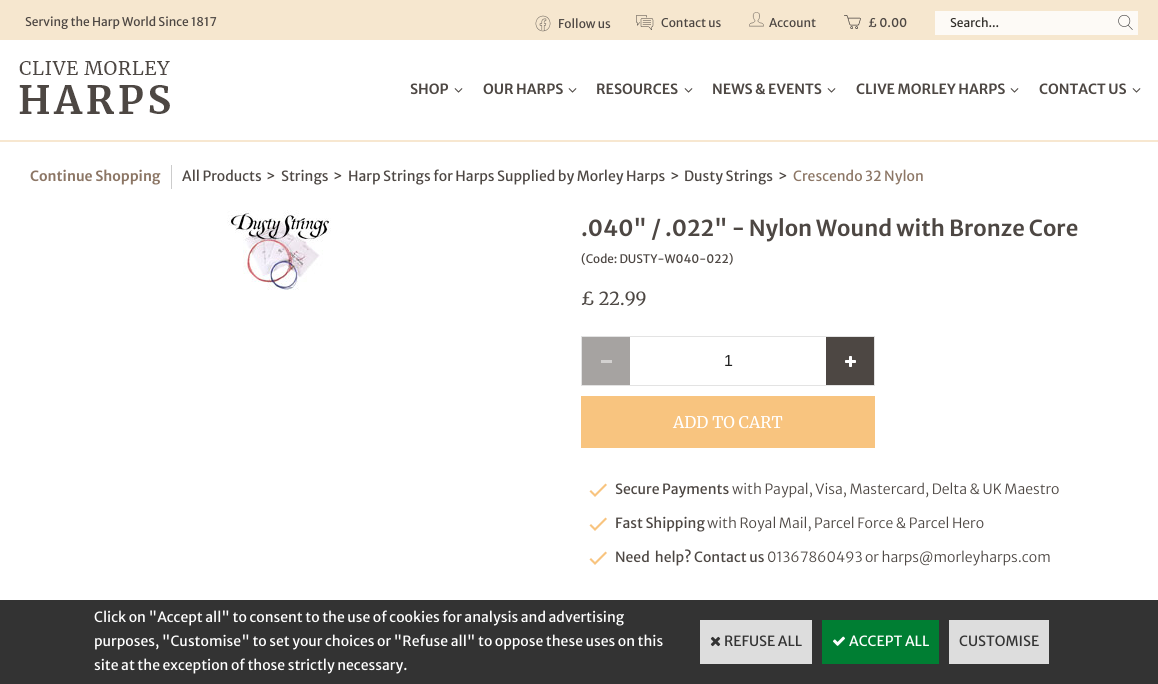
import math
import cairo


def paste(ctx, path, x, y, w, h):
	ctx.save()
	ctx.set_source_surface(cairo.ImageSurface.create_from_png(path), x, y)
	ctx.rectangle(x, y, w, h)
	ctx.fill()
	ctx.restore()

def draw(ctx):
	ctx.set_source_rgb(1, 1, 1)
	ctx.paint()
	ctx.set_source_rgb(0.965, 0.906, 0.816)
	ctx.rectangle(0, 140, 1158, 2)
	ctx.fill()
	ctx.set_source_rgb(0.961, 0.906, 0.812)
	ctx.rectangle(0, 0, 1158, 40)
	ctx.fill()
	ctx.select_font_face('Merriweather Sans')
	ctx.set_font_size(12)
	ctx.set_source_rgb(0.302, 0.278, 0.263)
	ctx.move_to(25, 26)
	ctx.show_text('Serving the Harp World Since 1817')
	paste(ctx, 'media/1.png', 535, 15, 16, 17)
	ctx.move_to(558, 28)
	ctx.show_text('Follow us')
	paste(ctx, 'media/2.png', 636, 15, 18, 15)
	ctx.move_to(661, 27)
	ctx.show_text('Contact us')
	paste(ctx, 'media/3.png', 749, 12, 15, 15)
	ctx.move_to(769, 27)
	ctx.show_text('Account')
	paste(ctx, 'media/4.png', 844, 15, 17, 14)
	ctx.move_to(868, 27)
	ctx.show_text('£ 0.00')
	ctx.set_source_rgb(0.992, 0.98, 0.961)
	ctx.rectangle(935, 11, 203, 24)
	ctx.fill()
	ctx.set_source_rgb(0.192, 0.18, 0.161)
	ctx.move_to(950, 27)
	ctx.show_text('Search...')
	paste(ctx, 'media/5.png', 1118, 14, 15, 16)
	paste(ctx, 'media/6.png', 19, 61, 151, 53)
	ctx.select_font_face('Merriweather Sans SemiBold')
	ctx.set_font_size(14)
	ctx.set_source_rgb(0.302, 0.278, 0.263)
	ctx.move_to(410, 94)
	ctx.show_text('SHOP')
	paste(ctx, 'media/7.png', 454, 88, 9, 5)
	ctx.move_to(483, 94)
	ctx.show_text('OUR HARPS')
	paste(ctx, 'media/7.png', 568, 88, 9, 5)
	ctx.move_to(596, 94)
	ctx.show_text('RESOURCES')
	paste(ctx, 'media/7.png', 684, 88, 9, 5)
	ctx.move_to(712, 94)
	ctx.show_text('NEWS & EVENTS')
	paste(ctx, 'media/7.png', 827, 88, 9, 5)
	ctx.move_to(856, 94)
	ctx.show_text('CLIVE MORLEY HARPS')
	paste(ctx, 'media/7.png', 1010, 88, 9, 5)
	ctx.move_to(1039, 94)
	ctx.show_text('CONTACT US')
	paste(ctx, 'media/7.png', 1132, 88, 9, 5)
	ctx.set_source_rgb(0.549, 0.463, 0.396)
	ctx.move_to(30, 181)
	ctx.show_text('Continue Shopping')
	ctx.set_source_rgb(0.8, 0.8, 0.8)
	ctx.rectangle(171, 165, 1, 24)
	ctx.fill()
	ctx.select_font_face('Merriweather Sans')
	ctx.set_source_rgb(0.302, 0.278, 0.263)
	for x, y, s in [
		(182, 181, 'All Products'),
		(266, 181, '>'),
		(281, 181, 'Strings'),
		(333, 181, '>'),
		(348, 181, 'Harp Strings for Harps Supplied by Morley Harps'),
		(670, 181, '>'),
		(684, 181, 'Dusty Strings'),
		(778, 181, '>'),
	]:
		ctx.move_to(x, y)
		ctx.show_text(s)
	ctx.set_source_rgb(0.549, 0.463, 0.396)
	ctx.move_to(793, 181)
	ctx.show_text('Crescendo 32 Nylon')
	paste(ctx, 'media/8.png', 227, 210, 104, 80)
	ctx.select_font_face('Merriweather Sans SemiBold')
	ctx.set_font_size(22)
	ctx.set_source_rgb(0.302, 0.278, 0.263)
	ctx.move_to(581, 236)
	ctx.show_text('.040" / .022" - Nylon Wound with Bronze Core')
	ctx.select_font_face('Merriweather Sans')
	ctx.set_font_size(11.7)
	ctx.move_to(581, 263)
	ctx.show_text('(Code: DUSTY-W040-022)')
	ctx.select_font_face('Merriweather')
	ctx.set_font_size(18)
	ctx.move_to(581, 305)
	ctx.show_text('£ 22.99')
	ctx.rectangle(581.5, 336.5, 293, 49)
	ctx.set_source_rgb(0.89, 0.89, 0.89)
	ctx.set_line_width(1)
	ctx.stroke()
	ctx.set_source_rgb(0.651, 0.639, 0.631)
	ctx.rectangle(582, 337, 48, 48)
	ctx.fill()
	ctx.set_source_rgb(0.827, 0.82, 0.816)
	ctx.rectangle(601, 360, 11, 3)
	ctx.fill()
	ctx.select_font_face('Liberation Sans')
	ctx.set_font_size(16)
	ctx.set_source_rgb(0.129, 0.129, 0.129)
	ctx.move_to(724, 366)
	ctx.show_text('1')
	ctx.set_source_rgb(0.302, 0.278, 0.263)
	ctx.rectangle(826, 337, 48, 48)
	ctx.fill()
	paste(ctx, 'media/9.png', 845, 356, 11, 11)
	ctx.set_source_rgb(0.969, 0.769, 0.498)
	ctx.rectangle(581, 396, 294, 52)
	ctx.fill()
	ctx.select_font_face('Merriweather')
	ctx.set_source_rgb(1, 1, 1)
	ctx.move_to(673, 428)
	ctx.show_text('ADD TO CART')
	ctx.set_source_rgb(0.969, 0.769, 0.498)
	ctx.new_path()
	ctx.move_to(595, 494)
	ctx.line_to(591, 490)
	ctx.line_to(589.5, 491.5)
	ctx.line_to(595, 497)
	ctx.line_to(607, 485)
	ctx.line_to(605.5, 483.5)
	ctx.close_path()
	ctx.move_to(595, 528)
	ctx.line_to(591, 524)
	ctx.line_to(589.5, 525.5)
	ctx.line_to(595, 531)
	ctx.line_to(607, 519)
	ctx.line_to(605.5, 517.5)
	ctx.close_path()
	ctx.fill()
	ctx.select_font_face('Merriweather Sans')
	ctx.set_font_size(14)
	ctx.set_source_rgb(0.302, 0.278, 0.263)
	ctx.move_to(615, 494)
	ctx.show_text('Secure Payments')
	ctx.select_font_face('Merriweather Sans Light')
	ctx.move_to(732, 494)
	ctx.show_text('with Paypal, Visa, Mastercard, Delta & UK Maestro')
	ctx.select_font_face('Merriweather Sans')
	ctx.move_to(615, 528)
	ctx.show_text('Fast Shipping')
	ctx.select_font_face('Merriweather Sans Light')
	ctx.move_to(707, 528)
	ctx.show_text('with Royal Mail, Parcel Force & Parcel Hero')
	ctx.set_source_rgb(0.969, 0.769, 0.498)
	ctx.new_path()
	ctx.move_to(595, 562)
	ctx.line_to(591, 558)
	ctx.line_to(589.5, 559.5)
	ctx.line_to(595, 565)
	ctx.line_to(607, 553)
	ctx.line_to(605.5, 551.5)
	ctx.close_path()
	ctx.fill()
	ctx.select_font_face('Merriweather Sans')
	ctx.set_source_rgb(0.302, 0.278, 0.263)
	ctx.move_to(615, 562)
	ctx.show_text('Need  help? Contact us')
	ctx.select_font_face('Merriweather Sans Light')
	ctx.move_to(767, 562)
	ctx.show_text('01367860493 or harps@morleyharps.com')
	ctx.set_source_rgb(0.2, 0.2, 0.2)
	ctx.rectangle(0, 600, 1158, 84)
	ctx.fill()
	ctx.select_font_face('Merriweather Sans')
	ctx.set_source_rgb(1, 1, 1)
	for x, y, s in [
		(94, 622, 'Click on "Accept all" to consent to the use of cookies for analysis and advertising'),
		(94, 646, 'purposes, "Customise" to set your choices or "Refuse all" to oppose these uses on this'),
		(94, 670, 'site at the exception of those strictly necessary.'),
	]:
		ctx.move_to(x, y)
		ctx.show_text(s)
	ctx.set_source_rgb(0.867, 0.867, 0.867)
	ctx.rectangle(700, 620, 112, 44)
	ctx.fill()
	paste(ctx, 'media/10.png', 710, 636, 11, 11)
	ctx.set_source_rgb(0.2, 0.2, 0.2)
	ctx.move_to(724, 646)
	ctx.show_text('REFUSE ALL')
	ctx.set_source_rgb(0, 0.494, 0.2)
	ctx.rectangle(822, 620, 117, 44)
	ctx.fill()
	paste(ctx, 'media/11.png', 833, 636, 12, 10)
	ctx.set_source_rgb(1, 1, 1)
	ctx.move_to(849, 646)
	ctx.show_text('ACCEPT ALL')
	ctx.set_source_rgb(0.867, 0.867, 0.867)
	ctx.rectangle(949, 620, 100, 44)
	ctx.fill()
	ctx.set_source_rgb(0.2, 0.2, 0.2)
	ctx.move_to(959, 646)
	ctx.show_text('CUSTOMISE')


surface = cairo.ImageSurface(cairo.FORMAT_RGB24, 1158, 684)
ctx = cairo.Context(surface)
options = cairo.FontOptions()
options.set_hint_metrics(cairo.HINT_METRICS_OFF)
options.set_hint_style(cairo.HINT_STYLE_NONE)
ctx.set_font_options(options)
ctx.set_miter_limit(4)
draw(ctx)
surface.write_to_png('image.png')
